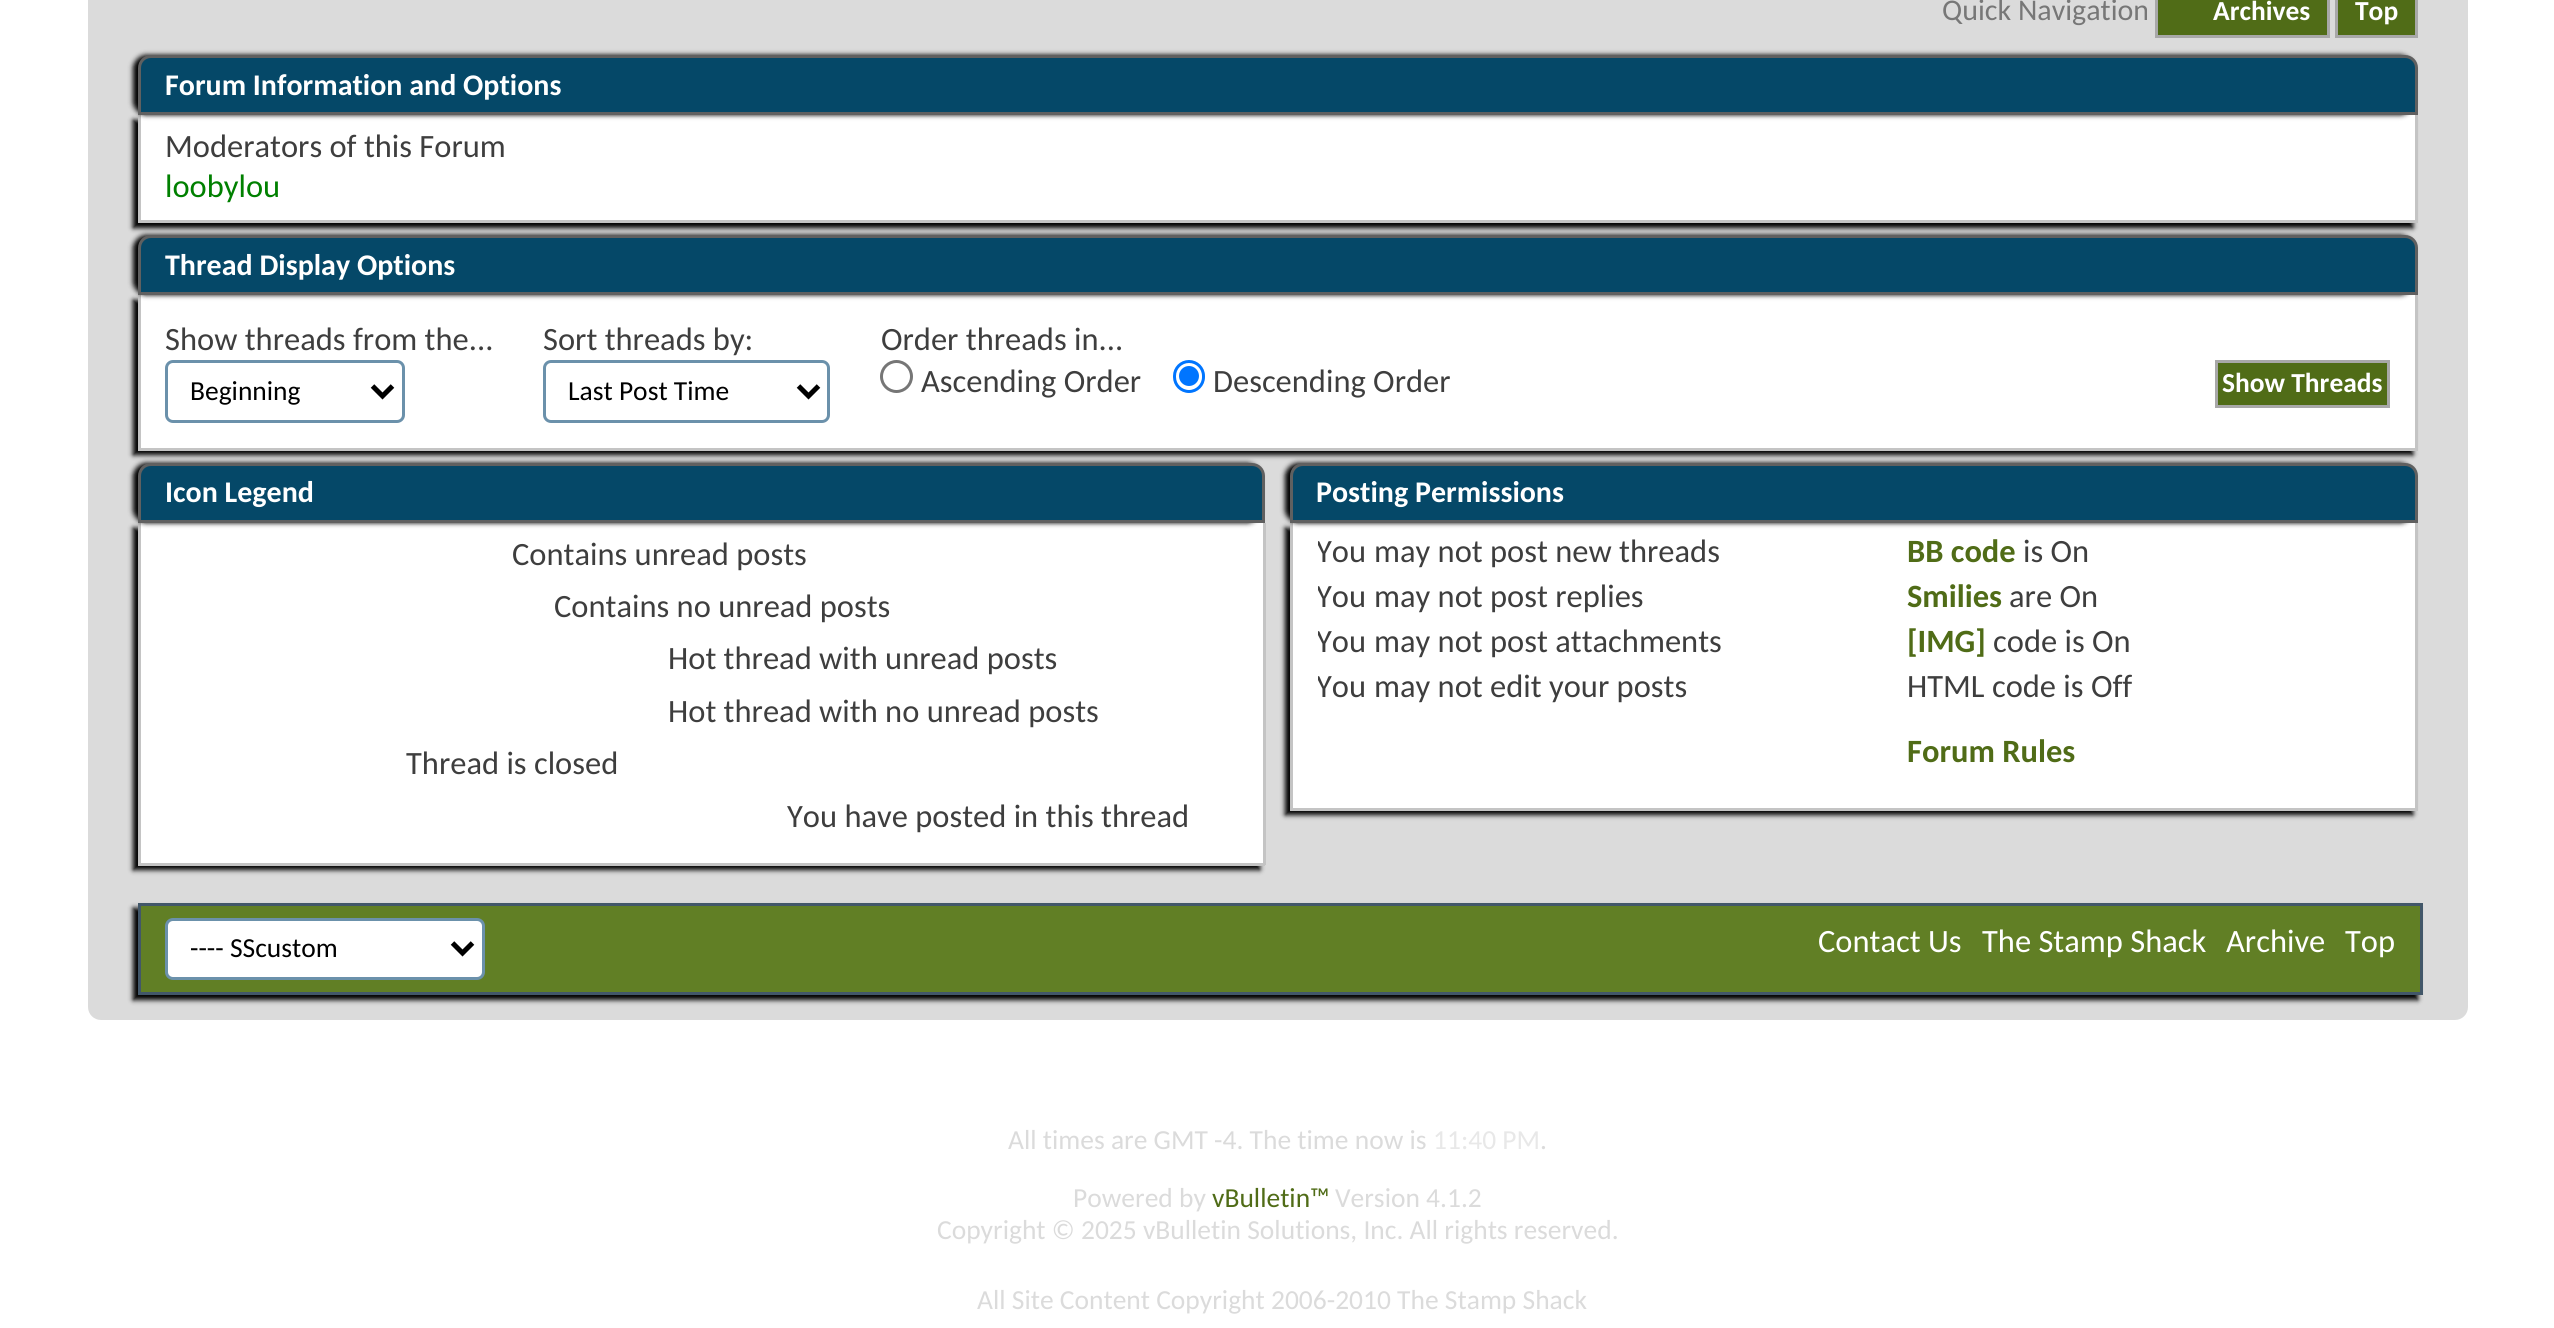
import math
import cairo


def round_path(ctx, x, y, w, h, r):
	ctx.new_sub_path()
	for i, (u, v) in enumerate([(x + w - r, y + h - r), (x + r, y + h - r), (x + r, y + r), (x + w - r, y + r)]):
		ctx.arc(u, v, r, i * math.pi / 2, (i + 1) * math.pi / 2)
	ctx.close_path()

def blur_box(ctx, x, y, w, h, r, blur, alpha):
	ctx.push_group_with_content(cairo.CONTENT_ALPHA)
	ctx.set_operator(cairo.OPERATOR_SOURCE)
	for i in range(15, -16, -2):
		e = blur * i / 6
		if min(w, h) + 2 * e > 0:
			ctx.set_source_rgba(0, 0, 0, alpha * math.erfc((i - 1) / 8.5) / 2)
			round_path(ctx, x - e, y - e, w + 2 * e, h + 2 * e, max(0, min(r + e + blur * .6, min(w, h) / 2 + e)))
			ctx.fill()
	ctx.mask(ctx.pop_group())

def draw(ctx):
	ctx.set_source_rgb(1, 1, 1)
	ctx.paint()
	ctx.set_source_rgb(0.859, 0.859, 0.859)
	round_path(ctx, 88, -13, 2380, 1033, 13)
	ctx.fill()
	ctx.select_font_face('Carlito')
	ctx.set_font_size(30)
	ctx.set_source_rgb(0.467, 0.467, 0.467)
	ctx.move_to(1942, 20)
	ctx.show_text('Quick Navigation')
	ctx.set_source_rgb(0.314, 0.424, 0.09)
	ctx.rectangle(2156.5, -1.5, 172, 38)
	ctx.fill_preserve()
	ctx.set_source_rgb(0.659, 0.659, 0.659)
	ctx.set_line_width(3)
	ctx.stroke()
	ctx.select_font_face('Carlito', cairo.FONT_SLANT_NORMAL, cairo.FONT_WEIGHT_BOLD)
	ctx.set_font_size(27.5)
	ctx.set_source_rgb(1, 1, 1)
	ctx.move_to(2213, 20)
	ctx.show_text('Archives')
	ctx.set_source_rgb(0.314, 0.424, 0.09)
	ctx.rectangle(2336.5, -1.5, 80, 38)
	ctx.fill_preserve()
	ctx.set_source_rgb(0.659, 0.659, 0.659)
	ctx.stroke()
	ctx.set_source_rgb(1, 1, 1)
	ctx.move_to(2355, 20)
	ctx.show_text('Top')
	ctx.set_source_rgb(0, 0, 0)
	blur_box(ctx, 133, 120, 2280, 108, 0, 2.5, 1)
	ctx.set_source_rgb(1, 1, 1)
	ctx.rectangle(141, 115, 2274, 105)
	ctx.fill()
	ctx.set_source_rgb(0.769, 0.769, 0.769)
	ctx.rectangle(2415, 115, 3, 108)
	ctx.rectangle(138, 220, 2280, 3)
	ctx.rectangle(138, 115, 3, 108)
	ctx.fill()
	ctx.set_source_rgb(0, 0, 0)
	blur_box(ctx, 133, 55, 2280, 60, 13, 2.5, 1)
	ctx.set_source_rgb(0.02, 0.282, 0.408)
	ctx.new_path()
	ctx.move_to(151, 56.5)
	ctx.line_to(2405, 56.5)
	ctx.curve_to(2411.5, 56.5, 2416.5, 61.5, 2416.5, 68)
	ctx.line_to(2416.5, 113.5)
	ctx.line_to(139.5, 113.5)
	ctx.line_to(139.5, 68)
	ctx.curve_to(139.5, 61.5, 144.5, 56.5, 151, 56.5)
	ctx.close_path()
	ctx.fill_preserve()
	ctx.set_source_rgb(0.376, 0.376, 0.376)
	ctx.stroke()
	ctx.set_font_size(30)
	ctx.set_source_rgb(1, 1, 1)
	ctx.move_to(165, 95)
	ctx.show_text('Forum Information and Options')
	ctx.select_font_face('Carlito')
	ctx.set_font_size(32.5)
	ctx.set_source_rgb(0.243, 0.243, 0.243)
	ctx.move_to(165, 157)
	ctx.show_text('Moderators of this Forum')
	ctx.set_source_rgb(0, 0.502, 0)
	ctx.move_to(165, 197)
	ctx.show_text('loobylou')
	ctx.set_source_rgb(0, 0, 0)
	blur_box(ctx, 133, 300, 2280, 155, 0, 2.5, 1)
	ctx.set_source_rgb(1, 1, 1)
	ctx.rectangle(141, 295, 2274, 153)
	ctx.fill()
	ctx.set_source_rgb(0.769, 0.769, 0.769)
	ctx.rectangle(2415, 295, 3, 155)
	ctx.rectangle(138, 448, 2280, 3)
	ctx.rectangle(138, 295, 3, 155)
	ctx.fill()
	ctx.set_source_rgb(0, 0, 0)
	blur_box(ctx, 133, 235, 2280, 60, 13, 2.5, 1)
	ctx.set_source_rgb(0.02, 0.282, 0.408)
	ctx.new_path()
	ctx.move_to(151, 236.5)
	ctx.line_to(2405, 236.5)
	ctx.curve_to(2411.5, 236.5, 2416.5, 241.5, 2416.5, 248)
	ctx.line_to(2416.5, 293.5)
	ctx.line_to(139.5, 293.5)
	ctx.line_to(139.5, 248)
	ctx.curve_to(139.5, 241.5, 144.5, 236.5, 151, 236.5)
	ctx.close_path()
	ctx.fill_preserve()
	ctx.set_source_rgb(0.376, 0.376, 0.376)
	ctx.stroke()
	ctx.select_font_face('Carlito', cairo.FONT_SLANT_NORMAL, cairo.FONT_WEIGHT_BOLD)
	ctx.set_font_size(30)
	ctx.set_source_rgb(1, 1, 1)
	ctx.move_to(165, 275)
	ctx.show_text('Thread Display Options')
	ctx.select_font_face('Carlito')
	ctx.set_font_size(32.5)
	ctx.set_source_rgb(0.243, 0.243, 0.243)
	ctx.move_to(165, 350)
	ctx.show_text('Show threads from the...')
	round_path(ctx, 166.5, 361.5, 237, 60, 6.5)
	ctx.set_source_rgb(0.42, 0.569, 0.671)
	ctx.stroke()
	ctx.new_path()
	ctx.move_to(372.5, 386)
	ctx.line_to(382.5, 396)
	ctx.line_to(392.5, 386)
	ctx.set_source_rgb(0, 0, 0)
	ctx.set_line_width(5)
	ctx.stroke()
	ctx.set_font_size(27.5)
	ctx.move_to(190, 400)
	ctx.show_text('Beginning')
	ctx.set_font_size(32.5)
	ctx.set_source_rgb(0.243, 0.243, 0.243)
	ctx.move_to(543, 350)
	ctx.show_text('Sort threads by:')
	round_path(ctx, 544.5, 361.5, 284, 60, 6.5)
	ctx.set_source_rgb(0.42, 0.569, 0.671)
	ctx.set_line_width(3)
	ctx.stroke()
	ctx.new_path()
	ctx.move_to(798.5, 386)
	ctx.line_to(808.5, 396)
	ctx.line_to(818.5, 386)
	ctx.set_source_rgb(0, 0, 0)
	ctx.set_line_width(5)
	ctx.stroke()
	ctx.set_font_size(27.5)
	ctx.move_to(568, 400)
	ctx.show_text('Last Post Time')
	ctx.set_font_size(32.5)
	ctx.set_source_rgb(0.243, 0.243, 0.243)
	ctx.move_to(881, 350)
	ctx.show_text('Order threads in...')
	ctx.new_path()
	ctx.arc(896.5, 376.5, 15, 0, 2 * math.pi)
	ctx.set_source_rgb(0.463, 0.463, 0.463)
	ctx.set_line_width(3)
	ctx.stroke()
	ctx.set_source_rgb(0.243, 0.243, 0.243)
	ctx.move_to(921, 392)
	ctx.show_text('Ascending Order')
	round_path(ctx, 1174.5, 361.5, 29, 30, 14.5)
	ctx.set_source_rgb(0, 0.459, 1)
	ctx.stroke()
	ctx.arc(1189, 376, 10, 0, 2 * math.pi)
	ctx.fill()
	ctx.set_source_rgb(0.243, 0.243, 0.243)
	ctx.move_to(1213, 392)
	ctx.show_text('Descending Order')
	ctx.set_source_rgb(0.314, 0.424, 0.09)
	ctx.rectangle(2216.5, 361.5, 172, 45)
	ctx.fill_preserve()
	ctx.set_source_rgb(0.659, 0.659, 0.659)
	ctx.stroke()
	ctx.select_font_face('Carlito', cairo.FONT_SLANT_NORMAL, cairo.FONT_WEIGHT_BOLD)
	ctx.set_font_size(27.5)
	ctx.set_source_rgb(1, 1, 1)
	ctx.move_to(2222, 392)
	ctx.show_text('Show Threads')
	ctx.set_source_rgb(0, 0, 0)
	blur_box(ctx, 133, 528, 1127, 342, 0, 2.5, 1)
	ctx.set_source_rgb(1, 1, 1)
	ctx.rectangle(141, 523, 1122, 340)
	ctx.fill()
	ctx.set_source_rgb(0.769, 0.769, 0.769)
	ctx.rectangle(1263, 523, 3, 342)
	ctx.rectangle(138, 863, 1127, 3)
	ctx.rectangle(138, 523, 3, 342)
	ctx.fill()
	ctx.set_source_rgb(0, 0, 0)
	blur_box(ctx, 133, 463, 1127, 60, 13, 2.5, 1)
	ctx.set_source_rgb(0.02, 0.282, 0.408)
	ctx.new_path()
	ctx.move_to(151, 464.5)
	ctx.line_to(1252, 464.5)
	ctx.curve_to(1258.5, 464.5, 1263.5, 469.5, 1263.5, 476)
	ctx.line_to(1263.5, 521.5)
	ctx.line_to(139.5, 521.5)
	ctx.line_to(139.5, 476)
	ctx.curve_to(139.5, 469.5, 144.5, 464.5, 151, 464.5)
	ctx.close_path()
	ctx.fill_preserve()
	ctx.set_source_rgb(0.376, 0.376, 0.376)
	ctx.stroke()
	ctx.set_font_size(30)
	ctx.set_source_rgb(1, 1, 1)
	ctx.move_to(165, 502)
	ctx.show_text('Icon Legend')
	ctx.select_font_face('Carlito')
	ctx.set_font_size(32.5)
	ctx.set_source_rgb(0.243, 0.243, 0.243)
	for x, y, s in [
		(512, 565, 'Contains unread posts'),
		(554, 617, 'Contains no unread posts'),
		(668, 669, 'Hot thread with unread posts'),
		(668, 722, 'Hot thread with no unread posts'),
		(406, 774, 'Thread is closed'),
		(787, 827, 'You have posted in this thread'),
	]:
		ctx.move_to(x, y)
		ctx.show_text(s)
	ctx.set_source_rgb(0, 0, 0)
	blur_box(ctx, 1285, 528, 1128, 287, 0, 2.5, 1)
	ctx.set_source_rgb(1, 1, 1)
	ctx.rectangle(1293, 523, 1122, 285)
	ctx.fill()
	ctx.set_source_rgb(0.769, 0.769, 0.769)
	ctx.rectangle(2415, 523, 3, 287)
	ctx.rectangle(1290, 808, 1128, 3)
	ctx.rectangle(1290, 523, 3, 287)
	ctx.fill()
	ctx.set_source_rgb(0, 0, 0)
	blur_box(ctx, 1285, 463, 1128, 60, 13, 2.5, 1)
	ctx.set_source_rgb(0.02, 0.282, 0.408)
	ctx.new_path()
	ctx.move_to(1303, 464.5)
	ctx.line_to(2405, 464.5)
	ctx.curve_to(2411.5, 464.5, 2416.5, 469.5, 2416.5, 476)
	ctx.line_to(2416.5, 521.5)
	ctx.line_to(1291.5, 521.5)
	ctx.line_to(1291.5, 476)
	ctx.curve_to(1291.5, 469.5, 1296.5, 464.5, 1303, 464.5)
	ctx.close_path()
	ctx.fill_preserve()
	ctx.set_source_rgb(0.376, 0.376, 0.376)
	ctx.stroke()
	ctx.select_font_face('Carlito', cairo.FONT_SLANT_NORMAL, cairo.FONT_WEIGHT_BOLD)
	ctx.set_font_size(30)
	ctx.set_source_rgb(1, 1, 1)
	ctx.move_to(1316, 502)
	ctx.show_text('Posting Permissions')
	ctx.save()
	ctx.rectangle(1318, 533, 590, 180)
	ctx.clip()
	ctx.select_font_face('Carlito')
	ctx.set_font_size(32.5)
	ctx.set_source_rgb(0.243, 0.243, 0.243)
	ctx.move_to(1316, 562)
	ctx.show_text('You')
	ctx.restore()
	ctx.select_font_face('Carlito')
	ctx.set_font_size(32.5)
	ctx.set_source_rgb(0.243, 0.243, 0.243)
	ctx.move_to(1374, 562)
	ctx.show_text('may not post new threads')
	ctx.save()
	ctx.rectangle(1318, 533, 590, 180)
	ctx.clip()
	ctx.move_to(1316, 607)
	ctx.show_text('You')
	ctx.restore()
	ctx.move_to(1374, 607)
	ctx.show_text('may not post replies')
	ctx.save()
	ctx.rectangle(1318, 533, 590, 180)
	ctx.clip()
	ctx.move_to(1316, 652)
	ctx.show_text('You')
	ctx.restore()
	ctx.move_to(1374, 652)
	ctx.show_text('may not post attachments')
	ctx.save()
	ctx.rectangle(1318, 533, 590, 180)
	ctx.clip()
	ctx.move_to(1316, 697)
	ctx.show_text('You')
	ctx.restore()
	ctx.move_to(1374, 697)
	ctx.show_text('may not edit your posts')
	ctx.select_font_face('Carlito', cairo.FONT_SLANT_NORMAL, cairo.FONT_WEIGHT_BOLD)
	ctx.set_source_rgb(0.314, 0.424, 0.09)
	ctx.move_to(1907, 562)
	ctx.show_text('BB code')
	ctx.select_font_face('Carlito')
	ctx.set_source_rgb(0.243, 0.243, 0.243)
	ctx.move_to(2023, 562)
	ctx.show_text('is On')
	ctx.select_font_face('Carlito', cairo.FONT_SLANT_NORMAL, cairo.FONT_WEIGHT_BOLD)
	ctx.set_source_rgb(0.314, 0.424, 0.09)
	ctx.move_to(1907, 607)
	ctx.show_text('Smilies')
	ctx.select_font_face('Carlito')
	ctx.set_source_rgb(0.243, 0.243, 0.243)
	ctx.move_to(2009, 607)
	ctx.show_text('are On')
	ctx.select_font_face('Carlito', cairo.FONT_SLANT_NORMAL, cairo.FONT_WEIGHT_BOLD)
	ctx.set_source_rgb(0.314, 0.424, 0.09)
	ctx.move_to(1907, 652)
	ctx.show_text('[IMG]')
	ctx.select_font_face('Carlito')
	ctx.set_source_rgb(0.243, 0.243, 0.243)
	ctx.move_to(1993, 652)
	ctx.show_text('code is On')
	ctx.move_to(1907, 697)
	ctx.show_text('HTML code is Off')
	ctx.select_font_face('Carlito', cairo.FONT_SLANT_NORMAL, cairo.FONT_WEIGHT_BOLD)
	ctx.set_source_rgb(0.314, 0.424, 0.09)
	ctx.move_to(1907, 762)
	ctx.show_text('Forum Rules')
	ctx.set_source_rgb(0, 0, 0)
	blur_box(ctx, 133, 908, 2285, 92, 0, 2.5, 1)
	ctx.set_source_rgb(0.38, 0.498, 0.145)
	ctx.rectangle(139.5, 904.5, 2282, 89)
	ctx.fill_preserve()
	ctx.set_source_rgb(0.259, 0.341, 0.412)
	ctx.stroke()
	ctx.set_source_rgb(1, 1, 1)
	round_path(ctx, 166.5, 919.5, 317, 59, 6.5)
	ctx.fill_preserve()
	ctx.set_source_rgb(0.42, 0.569, 0.671)
	ctx.stroke()
	ctx.new_path()
	ctx.move_to(452.5, 943)
	ctx.line_to(462.5, 953)
	ctx.line_to(472.5, 943)
	ctx.set_source_rgb(0, 0, 0)
	ctx.set_line_width(5)
	ctx.stroke()
	ctx.select_font_face('Carlito')
	ctx.set_font_size(27.5)
	ctx.move_to(190, 957)
	ctx.show_text('---- SScustom')
	ctx.set_font_size(32.5)
	ctx.set_source_rgb(1, 1, 1)
	for x, y, s in [
		(1818, 952, 'Contact Us'),
		(1982, 952, 'The Stamp Shack'),
		(2226, 952, 'Archive'),
		(2345, 952, 'Top'),
	]:
		ctx.move_to(x, y)
		ctx.show_text(s)
	ctx.set_font_size(27.5)
	ctx.set_source_rgb(0.859, 0.859, 0.859)
	ctx.move_to(1008, 1149)
	ctx.show_text('All times are GMT -4. The time now is')
	ctx.set_source_rgb(0.91, 0.91, 0.91)
	ctx.move_to(1433, 1149)
	ctx.show_text('11:40 PM')
	ctx.set_source_rgb(0.859, 0.859, 0.859)
	ctx.move_to(1540, 1149)
	ctx.show_text('.')
	ctx.move_to(1073, 1207)
	ctx.show_text('Powered by')
	ctx.set_source_rgb(0.314, 0.424, 0.09)
	ctx.move_to(1212, 1207)
	ctx.show_text('vBulletin™')
	ctx.set_source_rgb(0.859, 0.859, 0.859)
	for x, y, s in [
		(1335, 1207, 'Version 4.1.2'),
		(937, 1239, 'Copyright © 2025 vBulletin Solutions, Inc. All rights reserved.'),
		(977, 1309, 'All Site Content Copyright 2006-2010 The Stamp Shack'),
	]:
		ctx.move_to(x, y)
		ctx.show_text(s)


surface = cairo.ImageSurface(cairo.FORMAT_RGB24, 2554, 1328)
ctx = cairo.Context(surface)
options = cairo.FontOptions()
options.set_hint_metrics(cairo.HINT_METRICS_OFF)
options.set_hint_style(cairo.HINT_STYLE_NONE)
ctx.set_font_options(options)
ctx.set_miter_limit(4)
draw(ctx)
surface.write_to_png('image.png')
